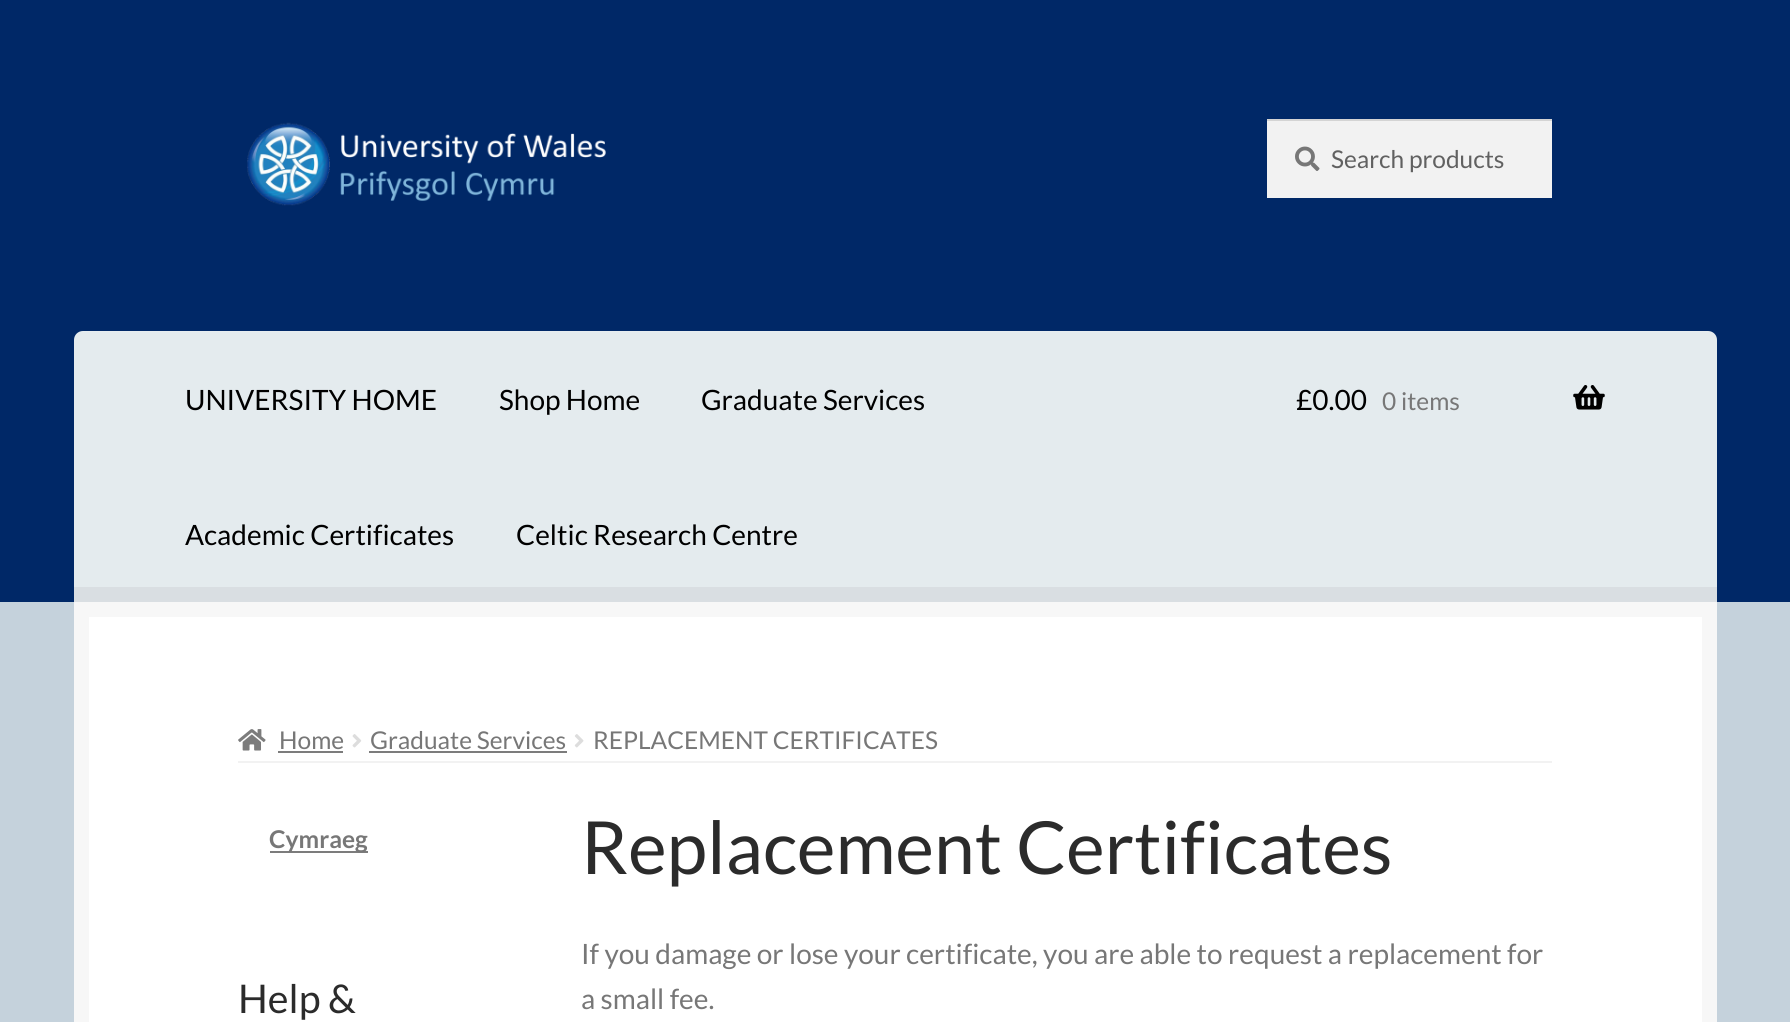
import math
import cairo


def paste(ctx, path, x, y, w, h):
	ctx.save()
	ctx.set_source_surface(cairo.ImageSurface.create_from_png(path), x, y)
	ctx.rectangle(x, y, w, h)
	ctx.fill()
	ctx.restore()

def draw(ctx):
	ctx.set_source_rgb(0.773, 0.824, 0.863)
	ctx.paint()
	ctx.set_source_rgb(0, 0.157, 0.404)
	ctx.rectangle(0, 0, 1790, 602)
	ctx.fill()
	paste(ctx, 'media/1.png', 247, 122, 359, 84)
	ctx.set_source_rgb(0.949, 0.949, 0.949)
	ctx.rectangle(1267, 121, 285, 77)
	ctx.fill()
	paste(ctx, 'media/2.png', 1295, 146, 25, 25)
	ctx.set_source_rgb(0.831, 0.831, 0.831)
	ctx.rectangle(1267, 119, 285, 2)
	ctx.fill()
	ctx.select_font_face('Lato')
	ctx.set_font_size(24.5)
	ctx.set_source_rgb(0.38, 0.38, 0.38)
	ctx.move_to(1331, 168)
	ctx.show_text('Search products')
	ctx.set_source_rgb(0.894, 0.918, 0.933)
	ctx.new_path()
	ctx.move_to(83, 331)
	ctx.line_to(1708, 331)
	ctx.curve_to(1713, 331, 1717, 335, 1717, 340)
	ctx.line_to(1717, 602)
	ctx.line_to(74, 602)
	ctx.line_to(74, 340)
	ctx.curve_to(74, 335, 78, 331, 83, 331)
	ctx.close_path()
	ctx.fill()
	ctx.set_source_rgb(0.851, 0.871, 0.886)
	ctx.rectangle(74, 587, 1643, 15)
	ctx.fill()
	ctx.set_source_rgba(1, 1, 1, 0.1)
	ctx.new_path()
	ctx.move_to(83, 332)
	ctx.line_to(1708, 332)
	ctx.curve_to(1713, 332, 1717, 337, 1717, 342)
	ctx.line_to(1717, 340)
	ctx.curve_to(1717, 335, 1713, 331, 1708, 331)
	ctx.line_to(83, 331)
	ctx.curve_to(78, 331, 74, 335, 74, 340)
	ctx.line_to(74, 342)
	ctx.curve_to(74, 337, 78, 332, 83, 332)
	ctx.close_path()
	ctx.fill()
	ctx.set_font_size(28)
	ctx.set_source_rgb(0, 0, 0)
	for x, y, s in [
		(185, 410, 'UNIVERSITY HOME'),
		(499, 410, 'Shop Home'),
		(701, 410, 'Graduate Services'),
		(185, 545, 'Academic Certificates'),
		(516, 545, 'Celtic Research Centre'),
		(1296, 410, '£0.00'),
	]:
		ctx.move_to(x, y)
		ctx.show_text(s)
	ctx.set_font_size(24.5)
	ctx.set_source_rgb(0.467, 0.467, 0.467)
	ctx.move_to(1382, 410)
	ctx.show_text('0 items')
	paste(ctx, 'media/3.png', 1573, 385, 32, 25)
	ctx.set_source_rgb(1, 1, 1)
	ctx.rectangle(81.5, 609.5, 1628, 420)
	ctx.fill_preserve()
	ctx.set_source_rgb(0.965, 0.965, 0.965)
	ctx.set_line_width(15)
	ctx.stroke()
	ctx.set_source_rgb(0.949, 0.949, 0.949)
	ctx.rectangle(238, 761, 1314, 2)
	ctx.fill()
	paste(ctx, 'media/4.png', 238, 729, 28, 22)
	ctx.set_source_rgb(0.467, 0.467, 0.467)
	ctx.move_to(279, 749)
	ctx.show_text('Home')
	ctx.set_source_rgb(0.486, 0.486, 0.486)
	ctx.rectangle(278, 751, 65, 2)
	ctx.fill()
	paste(ctx, 'media/5.png', 352, 734, 10, 14)
	ctx.set_source_rgb(0.467, 0.467, 0.467)
	ctx.move_to(370, 749)
	ctx.show_text('Graduate Services')
	ctx.set_source_rgb(0.486, 0.486, 0.486)
	ctx.rectangle(369, 751, 198, 2)
	ctx.fill()
	paste(ctx, 'media/6.png', 574, 734, 10, 14)
	ctx.set_source_rgb(0.467, 0.467, 0.467)
	ctx.move_to(593, 749)
	ctx.show_text('REPLACEMENT CERTIFICATES')
	ctx.set_source_rgb(0.486, 0.486, 0.486)
	ctx.rectangle(270, 851, 98, 2)
	ctx.fill()
	ctx.select_font_face('Lato', cairo.FONT_SLANT_NORMAL, cairo.FONT_WEIGHT_BOLD)
	ctx.set_source_rgb(0.467, 0.467, 0.467)
	ctx.move_to(269, 848)
	ctx.show_text('Cymraeg')
	ctx.select_font_face('Lato')
	ctx.set_font_size(39.5)
	ctx.set_source_rgb(0.169, 0.169, 0.169)
	ctx.move_to(238, 1013)
	ctx.show_text('Help &')
	ctx.set_font_size(73.25)
	ctx.move_to(581, 874)
	ctx.show_text('Replacement Certificates')
	ctx.set_font_size(28)
	ctx.set_source_rgb(0.467, 0.467, 0.467)
	ctx.move_to(581, 964)
	ctx.show_text('If you damage or lose your certificate, you are able to request a replacement for')
	ctx.move_to(581, 1009)
	ctx.show_text('a small fee.')


surface = cairo.ImageSurface(cairo.FORMAT_RGB24, 1790, 1022)
ctx = cairo.Context(surface)
options = cairo.FontOptions()
options.set_hint_metrics(cairo.HINT_METRICS_OFF)
options.set_hint_style(cairo.HINT_STYLE_NONE)
ctx.set_font_options(options)
ctx.set_miter_limit(4)
draw(ctx)
surface.write_to_png('image.png')
